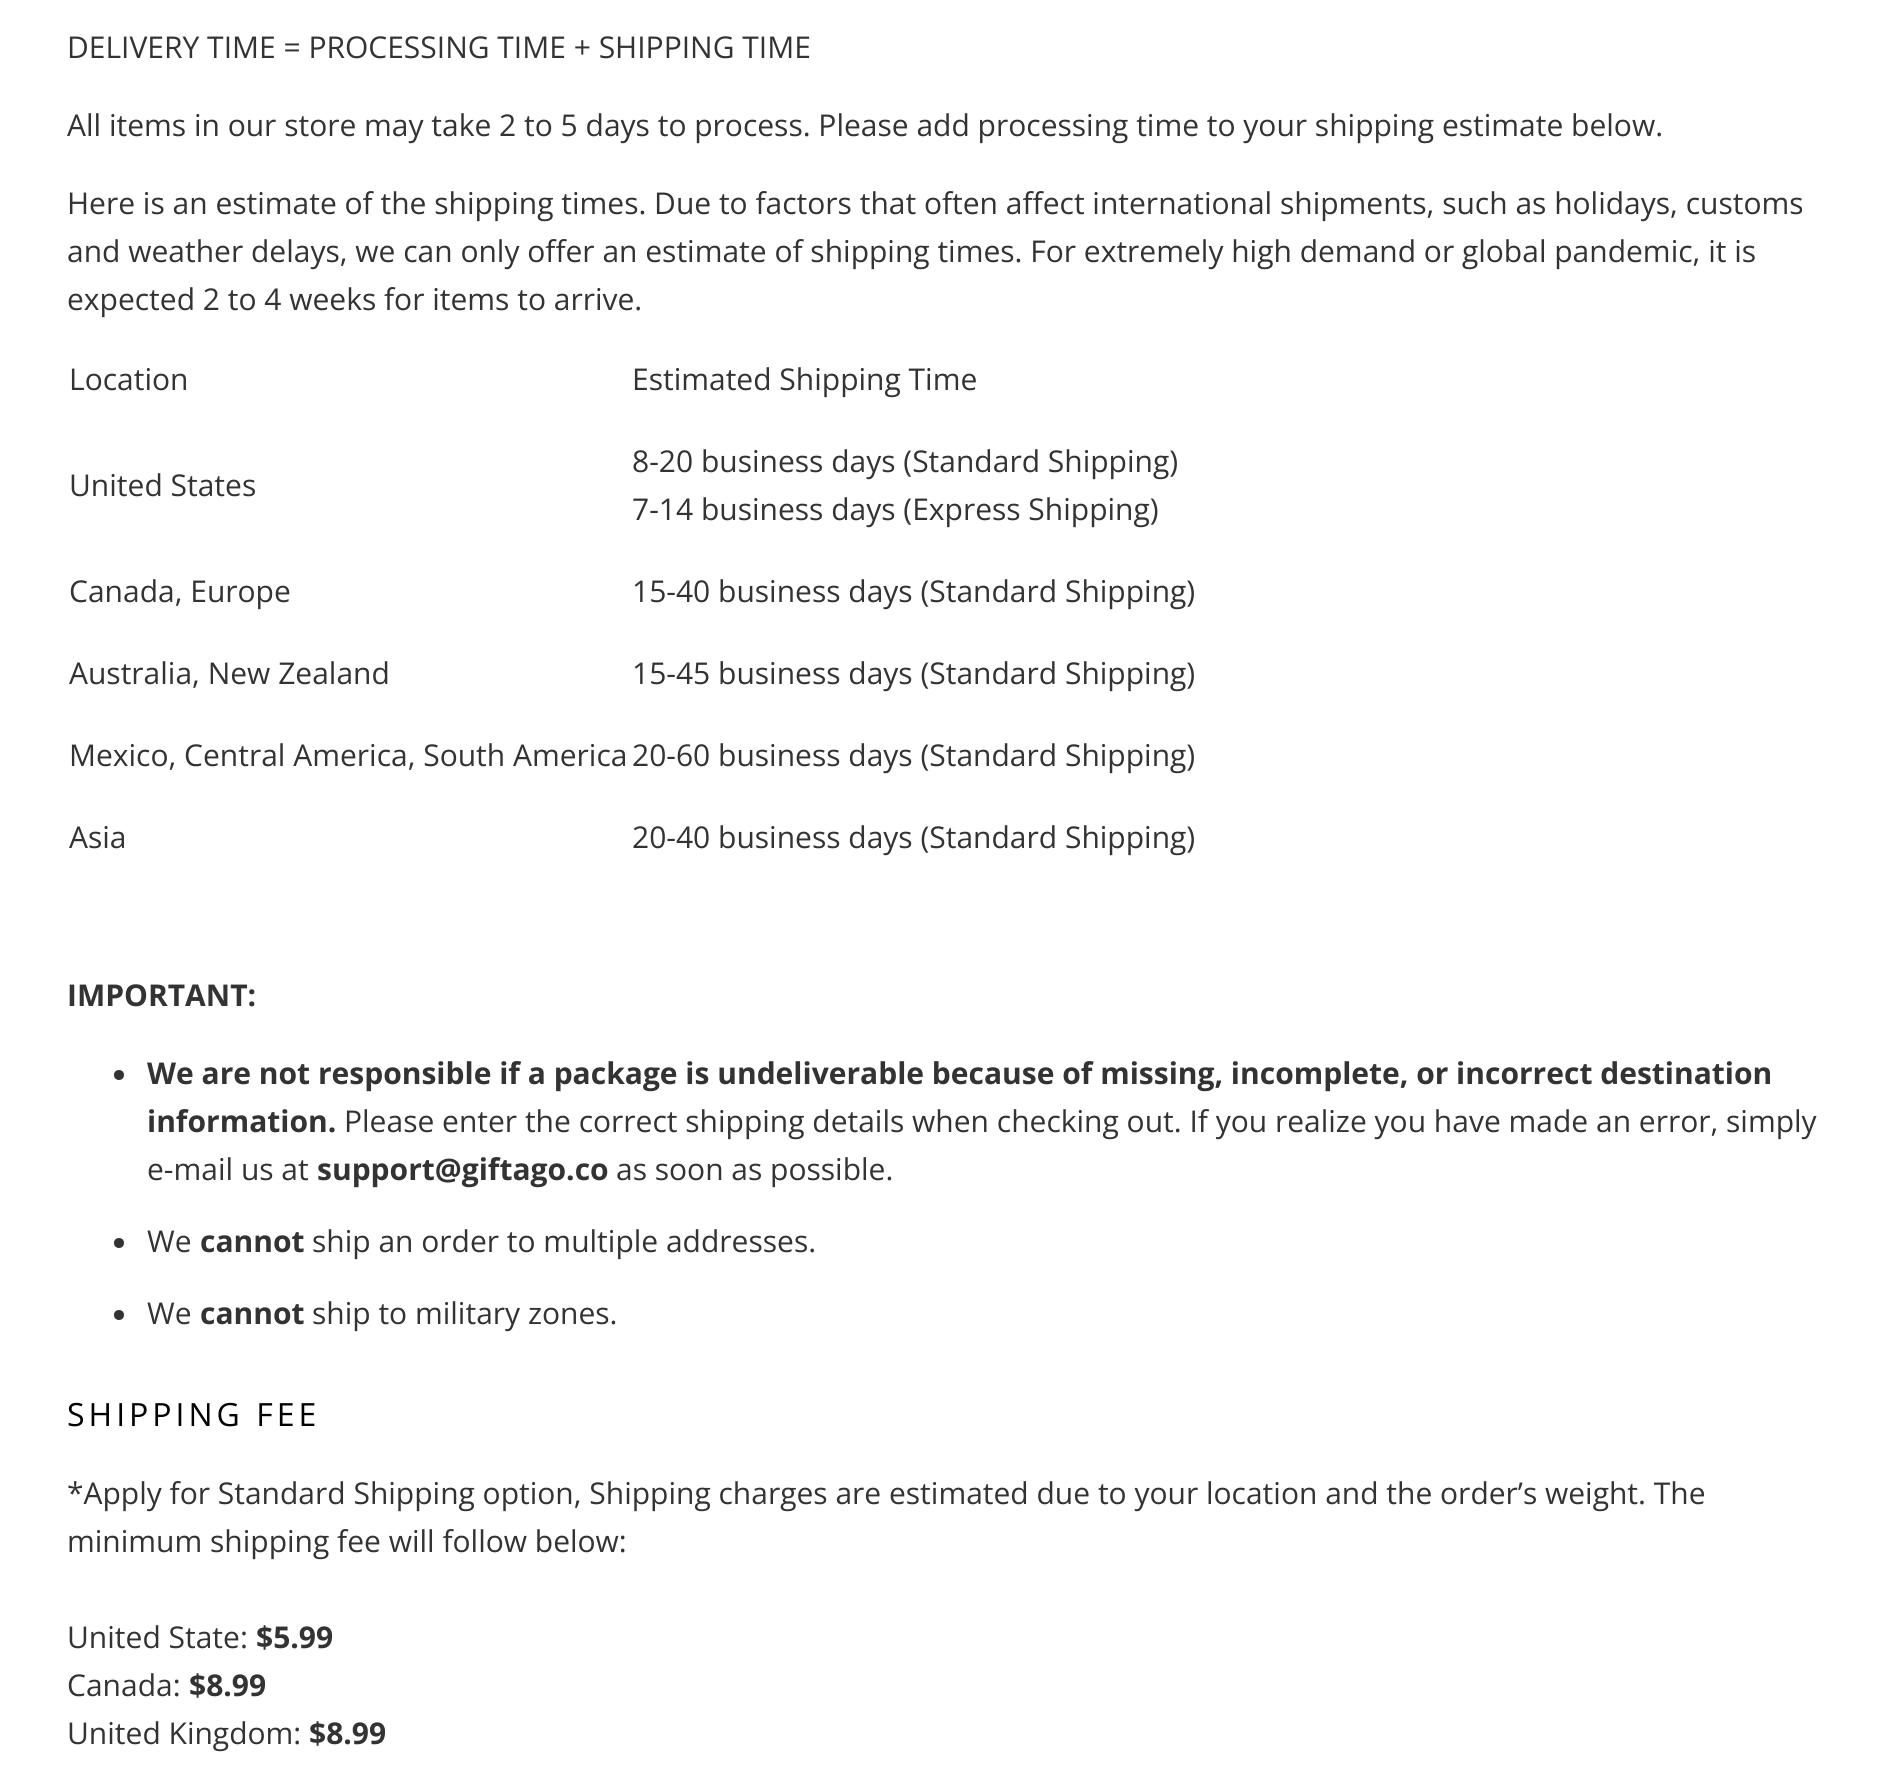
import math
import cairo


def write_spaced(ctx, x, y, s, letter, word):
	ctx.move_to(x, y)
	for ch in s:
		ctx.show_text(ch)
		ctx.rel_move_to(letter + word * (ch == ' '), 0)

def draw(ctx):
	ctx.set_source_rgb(1, 1, 1)
	ctx.paint()
	ctx.select_font_face('Open Sans')
	ctx.set_font_size(30)
	ctx.set_source_rgb(0.2, 0.2, 0.2)
	for x, y, s in [
		(67, 58, 'DELIVERY TIME = PROCESSING TIME + SHIPPING TIME'),
		(67, 136, 'All items in our store may take 2 to 5 days to process. Please add processing time to your shipping estimate below.'),
		(67, 214, 'Here is an estimate of the shipping times. Due to factors that often affect international shipments, such as holidays, customs'),
		(67, 262, 'and weather delays, we can only offer an estimate of shipping times. For extremely high demand or global pandemic, it is'),
		(67, 310, 'expected 2 to 4 weeks for items to arrive.'),
		(69, 390, 'Location'),
		(632, 390, 'Estimated Shipping Time'),
		(69, 496, 'United States'),
		(632, 472, '8-20 business days (Standard Shipping)'),
		(632, 520, '7-14 business days (Express Shipping)'),
		(69, 602, 'Canada, Europe'),
		(632, 602, '15-40 business days (Standard Shipping)'),
		(69, 684, 'Australia, New Zealand'),
		(632, 684, '15-45 business days (Standard Shipping)'),
		(69, 766, 'Mexico, Central America, South America'),
		(632, 766, '20-60 business days (Standard Shipping)'),
		(69, 848, 'Asia'),
		(632, 848, '20-40 business days (Standard Shipping)'),
	]:
		ctx.move_to(x, y)
		ctx.show_text(s)
	ctx.select_font_face('Open Sans', cairo.FONT_SLANT_NORMAL, cairo.FONT_WEIGHT_BOLD)
	ctx.move_to(67, 1006)
	ctx.show_text('IMPORTANT:')
	ctx.new_path()
	ctx.arc(119, 1075, 5, 0, 2 * math.pi)
	ctx.fill()
	ctx.move_to(147, 1084)
	ctx.show_text('We are not responsible if a package is undeliverable because of missing, incomplete, or incorrect destination')
	ctx.move_to(147, 1132)
	ctx.show_text('information.')
	ctx.select_font_face('Open Sans')
	ctx.move_to(344, 1132)
	ctx.show_text('Please enter the correct shipping details when checking out. If you realize you have made an error, simply')
	ctx.move_to(147, 1180)
	ctx.show_text('e-mail us at')
	ctx.select_font_face('Open Sans', cairo.FONT_SLANT_NORMAL, cairo.FONT_WEIGHT_BOLD)
	ctx.move_to(317, 1180)
	ctx.show_text('support@giftago.co')
	ctx.select_font_face('Open Sans')
	ctx.move_to(616, 1180)
	ctx.show_text('as soon as possible.')
	ctx.new_path()
	ctx.arc(119, 1243, 5, 0, 2 * math.pi)
	ctx.fill()
	ctx.move_to(147, 1252)
	ctx.show_text('We')
	ctx.select_font_face('Open Sans', cairo.FONT_SLANT_NORMAL, cairo.FONT_WEIGHT_BOLD)
	ctx.move_to(200, 1252)
	ctx.show_text('cannot')
	ctx.select_font_face('Open Sans')
	ctx.move_to(312, 1252)
	ctx.show_text('ship an order to multiple addresses.')
	ctx.new_path()
	ctx.arc(119, 1315, 5, 0, 2 * math.pi)
	ctx.fill()
	ctx.move_to(147, 1324)
	ctx.show_text('We')
	ctx.select_font_face('Open Sans', cairo.FONT_SLANT_NORMAL, cairo.FONT_WEIGHT_BOLD)
	ctx.move_to(200, 1324)
	ctx.show_text('cannot')
	ctx.select_font_face('Open Sans')
	ctx.move_to(312, 1324)
	ctx.show_text('ship to military zones.')
	ctx.set_font_size(32)
	ctx.set_source_rgb(0, 0, 0)
	write_spaced(ctx, 67, 1426, 'SHIPPING FEE', 4, 0)
	ctx.set_font_size(30)
	ctx.set_source_rgb(0.2, 0.2, 0.2)
	for x, y, s in [
		(67, 1504, '*Apply for Standard Shipping option, Shipping charges are estimated due to your location and the order’s weight. The'),
		(67, 1552, 'minimum shipping fee will follow below:'),
		(67, 1648, 'United State:'),
	]:
		ctx.move_to(x, y)
		ctx.show_text(s)
	ctx.select_font_face('Open Sans', cairo.FONT_SLANT_NORMAL, cairo.FONT_WEIGHT_BOLD)
	ctx.move_to(256, 1648)
	ctx.show_text('$5.99')
	ctx.select_font_face('Open Sans')
	ctx.move_to(67, 1696)
	ctx.show_text('Canada:')
	ctx.select_font_face('Open Sans', cairo.FONT_SLANT_NORMAL, cairo.FONT_WEIGHT_BOLD)
	ctx.move_to(189, 1696)
	ctx.show_text('$8.99')
	ctx.select_font_face('Open Sans')
	ctx.move_to(67, 1744)
	ctx.show_text('United Kingdom:')
	ctx.select_font_face('Open Sans', cairo.FONT_SLANT_NORMAL, cairo.FONT_WEIGHT_BOLD)
	ctx.move_to(309, 1744)
	ctx.show_text('$8.99')


surface = cairo.ImageSurface(cairo.FORMAT_RGB24, 1894, 1765)
ctx = cairo.Context(surface)
options = cairo.FontOptions()
options.set_hint_metrics(cairo.HINT_METRICS_OFF)
options.set_hint_style(cairo.HINT_STYLE_NONE)
ctx.set_font_options(options)
ctx.set_miter_limit(4)
draw(ctx)
surface.write_to_png('image.png')
